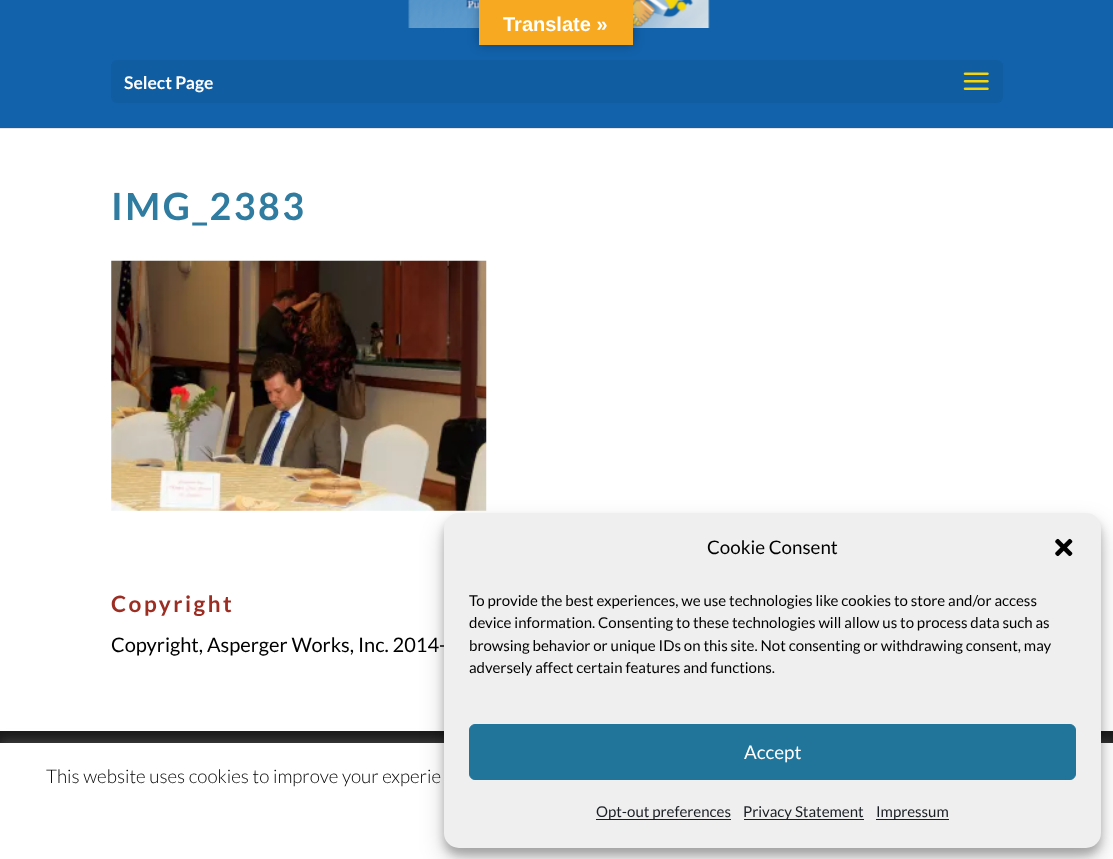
<svg xmlns="http://www.w3.org/2000/svg" width="1113" height="859">
<rect width="100%" height="100%" fill="#fff"/>
<rect width="1113" height="128" fill="#1262ab"/>
<image x="408" y="0" width="302" height="28" href="media/1.png"/>
<rect x="111" y="60" width="892" height="43" rx="6" fill="#115da2"/>
<rect x="479" width="154" height="45" fill="#0000004d" filter="blur(5.5px)"/>
<rect x="479" width="154" height="45" fill="#f7a922"/>
<text x="503" y="31" style="font-family:Liberation Sans;font-size:20px;font-weight:bold;fill:#fff">Translate »</text>
<path d="M0 128v1h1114v-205v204z" fill="#e6e6e6"/>
<text x="124" y="89" style="font-family:Lato;font-size:17.5px;font-weight:bold;fill:#fff">Select Page</text>
<image x="963" y="72" width="26" height="18" href="media/2.png"/>
<text x="111" y="220" style="font-family:Lato;font-size:37.5px;font-weight:bold;letter-spacing:2.5px;fill:#2f7ca0">IMG_2383</text>
<image x="111" y="260" width="376" height="251" href="media/3.png"/>
<text x="111" y="612" style="font-family:Lato;font-size:22.5px;font-weight:bold;letter-spacing:2.5px;fill:#9c2d23">Copyright</text>
<text x="111" y="652" style="font-family:Lato;font-size:20px;fill:#000">Copyright, Asperger Works, Inc. 2014-</text>
<rect y="731" width="1113" height="12" fill="#1a1a1a"/>
<rect y="741" width="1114" height="118" fill="#acabab4d" filter="blur(6px)"/>
<rect y="743" width="1113" height="116" fill="#fff"/>
<rect x="444" y="520" width="657" height="335" rx="15" fill="#0000003b" filter="blur(4px)"/>
<rect x="444" y="525" width="657" height="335" rx="15" fill="#00000030" filter="blur(12.5px)"/>
<rect x="444" y="513" width="657" height="335" rx="15" fill="#efefef"/>
<text x="707" y="554" style="font-family:Lato;font-size:18.75px;fill:#000">Cookie Consent</text>
<image x="1055" y="538" width="18" height="19" href="media/4.png"/>
<text x="469" y="606" style="font-family:Lato;font-size:15px;fill:#000">To provide the best experiences, we use technologies like cookies to store and/or access</text>
<text x="469" y="628" style="font-family:Lato;font-size:15px;fill:#000">device information. Consenting to these technologies will allow us to process data such as</text>
<text x="469" y="651" style="font-family:Lato;font-size:15px;fill:#000">browsing behavior or unique IDs on this site. Not consenting or withdrawing consent, may</text>
<text x="469" y="673" style="font-family:Lato;font-size:15px;fill:#000">adversely affect certain features and functions.</text>
<rect x="469.5" y="724.5" width="606" height="55" rx="5.5" fill="#21759b" stroke="#21759b"/>
<text x="744" y="759" style="font-family:Lato;font-size:18.75px;fill:#fff">Accept</text>
<rect x="596" y="819" width="135" height="1" fill="#191e23"/>
<text x="596" y="817" style="font-family:Lato;font-size:15px;fill:#191e23">Opt-out preferences</text>
<rect x="744" y="819" width="120" height="1" fill="#191e23"/>
<text x="743" y="817" style="font-family:Lato;font-size:15px;fill:#191e23">Privacy Statement</text>
<rect x="876" y="819" width="73" height="1" fill="#191e23"/>
<text x="876" y="817" style="font-family:Lato;font-size:15px;fill:#191e23">Impressum</text>
<text x="46" y="783" style="font-family:Lato;font-size:18.75px;font-weight:300;fill:#000">This website uses cookies to improve your experie</text>
</svg>
